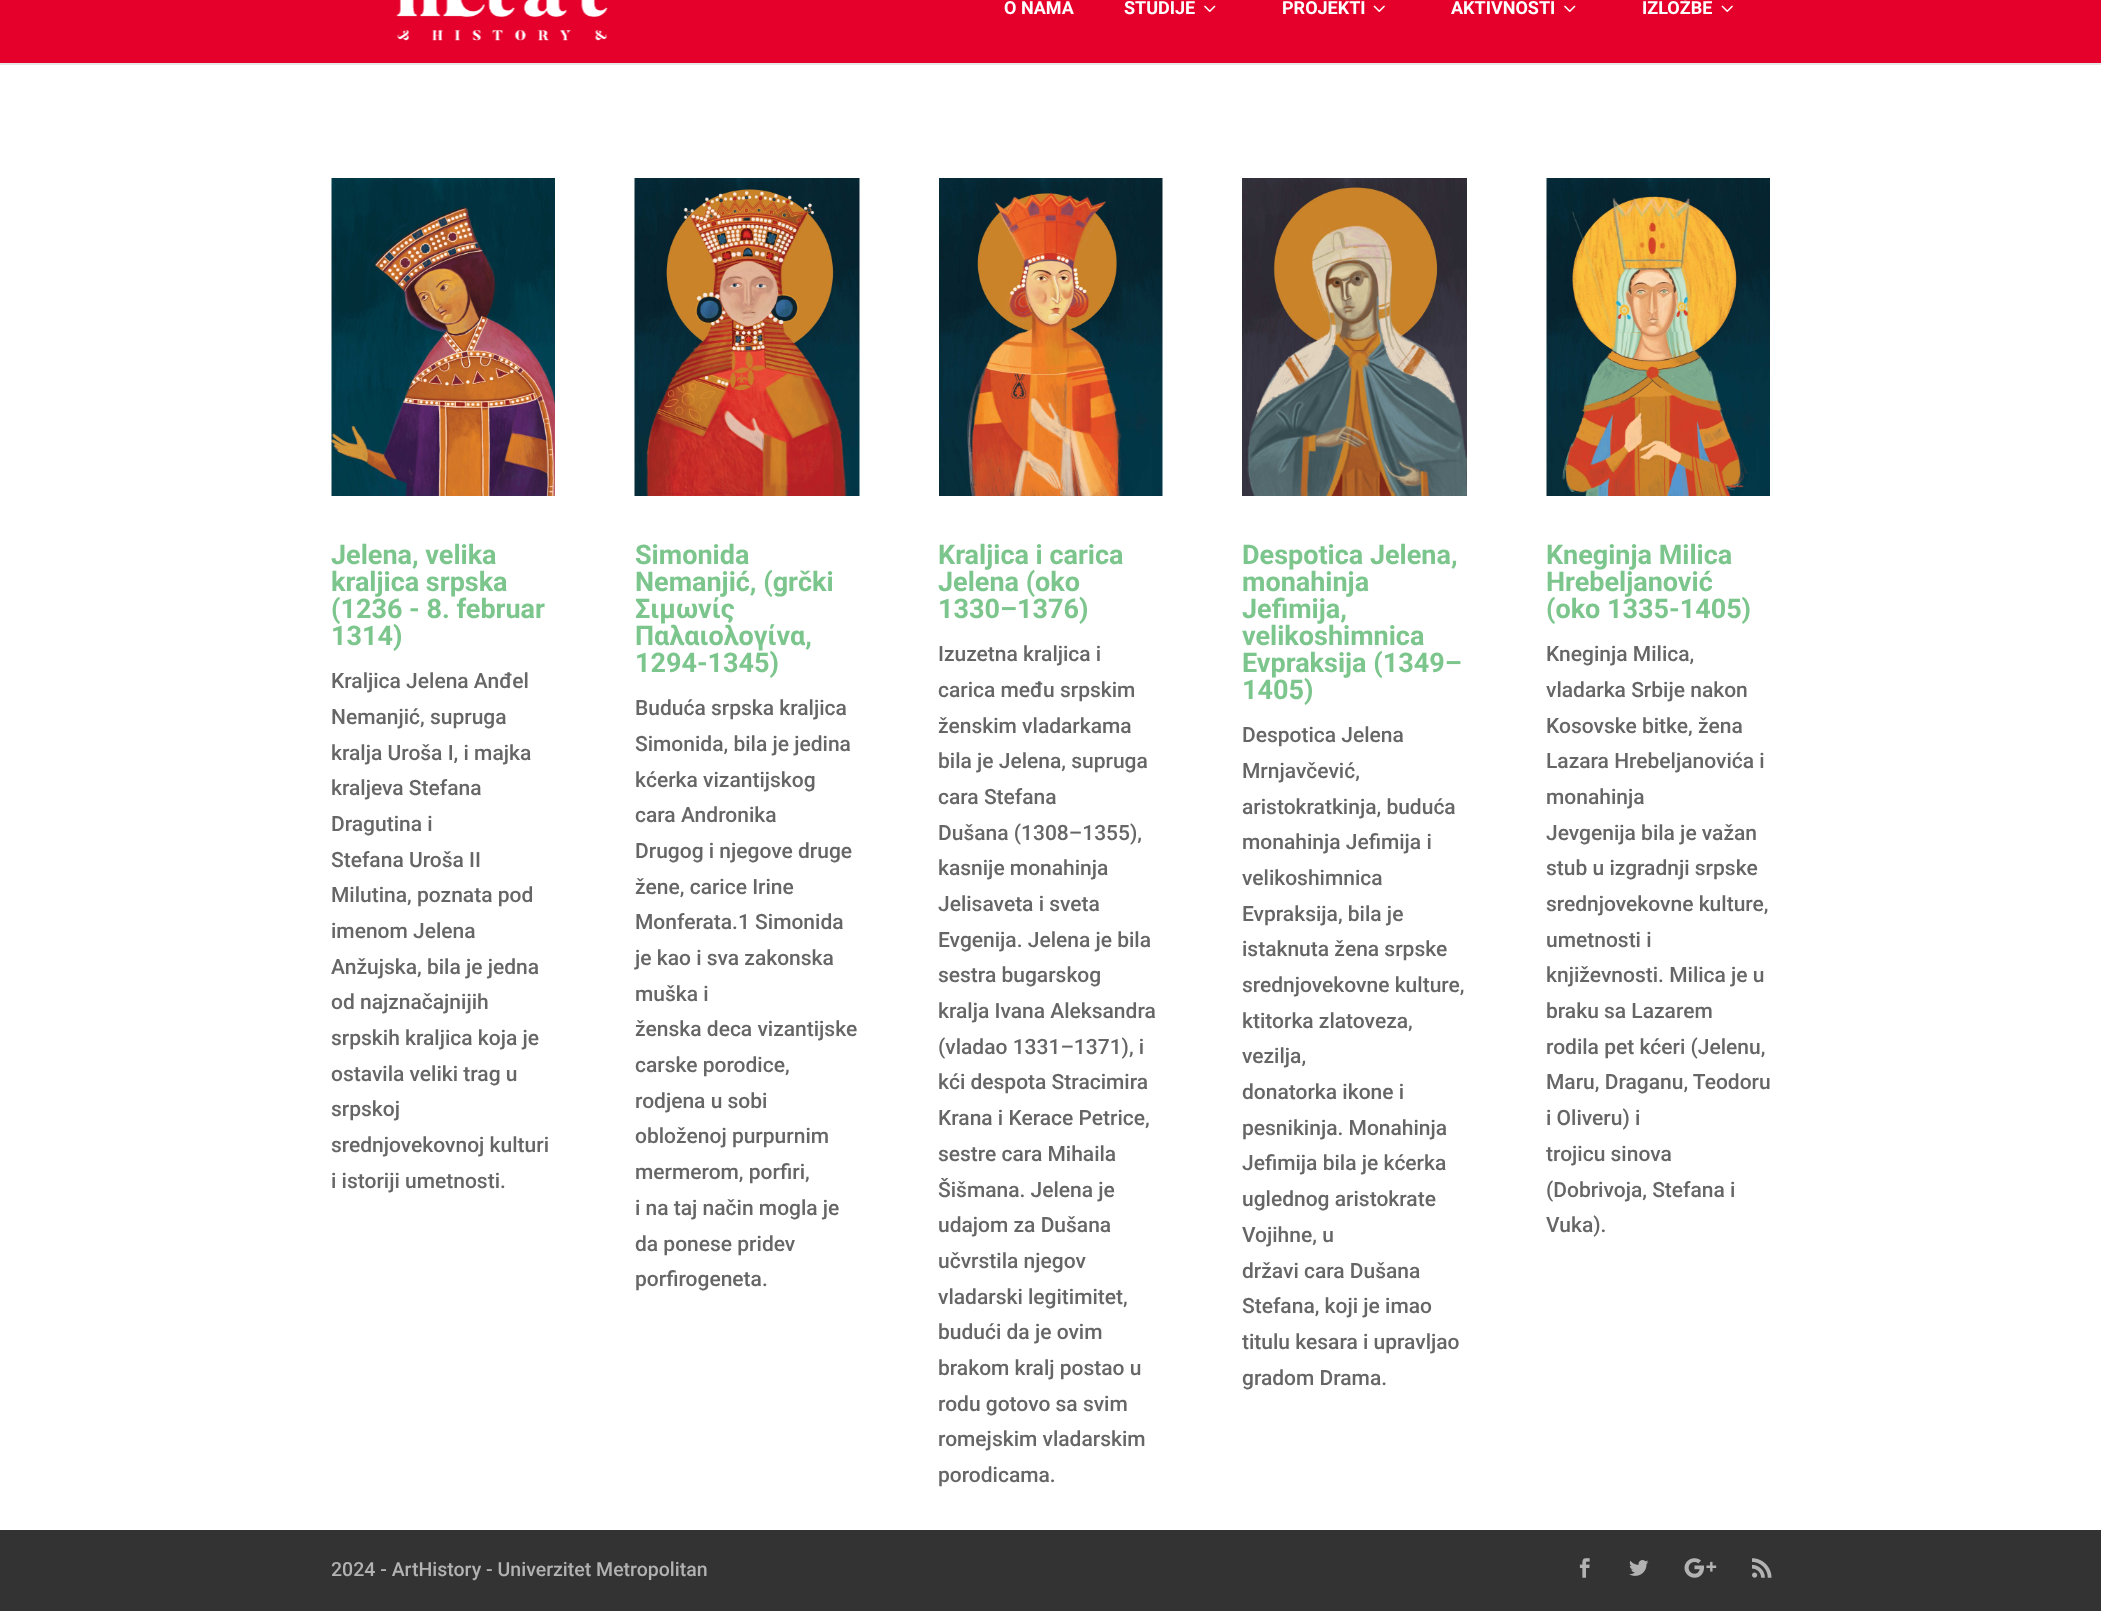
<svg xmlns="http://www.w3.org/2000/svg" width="2101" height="1611">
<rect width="100%" height="100%" fill="#fff"/>
<path d="M0 63v2h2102v-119v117z" fill="#e6e6e6"/>
<rect width="2101" height="63" fill="#e5002b"/>
<image x="396" y="0" width="212" height="41" href="media/1.png"/>
<text x="1004" y="14" style="font-family:Roboto;font-size:18px;font-weight:bold;fill:#fff">O NAMA</text>
<text x="1124" y="14" style="font-family:Roboto;font-size:18px;font-weight:bold;fill:#fff">STUDIJE</text>
<image x="1204" y="5" width="12" height="7" href="media/2.png"/>
<text x="1282" y="14" style="font-family:Roboto;font-size:18px;font-weight:bold;fill:#fff">PROJEKTI</text>
<image x="1373" y="5" width="12" height="7" href="media/3.png"/>
<text x="1451" y="14" style="font-family:Roboto;font-size:18px;font-weight:bold;fill:#fff">AKTIVNOSTI</text>
<image x="1564" y="5" width="12" height="7" href="media/2.png"/>
<text x="1642" y="14" style="font-family:Roboto;font-size:18px;font-weight:bold;fill:#fff">IZLOŽBE</text>
<image x="1721" y="5" width="12" height="7" href="media/3.png"/>
<image x="331" y="178" width="224" height="318" href="media/4.png"/>
<text x="331" y="564" style="font-family:Roboto;font-size:27px;font-weight:bold;fill:#7cc68d">Jelena, velika</text>
<text x="331" y="591" style="font-family:Roboto;font-size:27px;font-weight:bold;fill:#7cc68d">kraljica srpska</text>
<text x="331" y="618" style="font-family:Roboto;font-size:27px;font-weight:bold;fill:#7cc68d">(1236 - 8. februar</text>
<text x="331" y="645" style="font-family:Roboto;font-size:27px;font-weight:bold;fill:#7cc68d">1314)</text>
<text x="331" y="688" style="font-family:Roboto;font-size:21px;font-weight:500;fill:#666">Kraljica Jelena Anđel</text>
<text x="331" y="724" style="font-family:Roboto;font-size:21px;font-weight:500;fill:#666">Nemanjić, supruga</text>
<text x="331" y="760" style="font-family:Roboto;font-size:21px;font-weight:500;fill:#666">kralja Uroša I, i majka</text>
<text x="331" y="795" style="font-family:Roboto;font-size:21px;font-weight:500;fill:#666">kraljeva Stefana</text>
<text x="331" y="831" style="font-family:Roboto;font-size:21px;font-weight:500;fill:#666">Dragutina i</text>
<text x="331" y="867" style="font-family:Roboto;font-size:21px;font-weight:500;fill:#666">Stefana Uroša II</text>
<text x="331" y="902" style="font-family:Roboto;font-size:21px;font-weight:500;fill:#666">Milutina, poznata pod</text>
<text x="331" y="938" style="font-family:Roboto;font-size:21px;font-weight:500;fill:#666">imenom Jelena</text>
<text x="331" y="974" style="font-family:Roboto;font-size:21px;font-weight:500;fill:#666">Anžujska, bila je jedna</text>
<text x="331" y="1009" style="font-family:Roboto;font-size:21px;font-weight:500;fill:#666">od najznačajnijih</text>
<text x="331" y="1045" style="font-family:Roboto;font-size:21px;font-weight:500;fill:#666">srpskih kraljica koja je</text>
<text x="331" y="1081" style="font-family:Roboto;font-size:21px;font-weight:500;fill:#666">ostavila veliki trag u</text>
<text x="331" y="1116" style="font-family:Roboto;font-size:21px;font-weight:500;fill:#666">srpskoj</text>
<text x="331" y="1152" style="font-family:Roboto;font-size:21px;font-weight:500;fill:#666">srednjovekovnoj kulturi</text>
<text x="331" y="1188" style="font-family:Roboto;font-size:21px;font-weight:500;fill:#666">i istoriji umetnosti.</text>
<image x="634" y="178" width="226" height="318" href="media/5.png"/>
<text x="635" y="564" style="font-family:Roboto;font-size:27px;font-weight:bold;fill:#7cc68d">Simonida</text>
<text x="635" y="591" style="font-family:Roboto;font-size:27px;font-weight:bold;fill:#7cc68d">Nemanjić, (grčki</text>
<text x="635" y="618" style="font-family:Roboto;font-size:27px;font-weight:bold;fill:#7cc68d">Σιμωνίς</text>
<text x="635" y="645" style="font-family:Roboto;font-size:27px;font-weight:bold;fill:#7cc68d">Παλαιολογίνα,</text>
<text x="635" y="672" style="font-family:Roboto;font-size:27px;font-weight:bold;fill:#7cc68d">1294-1345)</text>
<text x="635" y="715" style="font-family:Roboto;font-size:21px;font-weight:500;fill:#666">Buduća srpska kraljica</text>
<text x="635" y="751" style="font-family:Roboto;font-size:21px;font-weight:500;fill:#666">Simonida, bila je jedina</text>
<text x="635" y="787" style="font-family:Roboto;font-size:21px;font-weight:500;fill:#666">kćerka vizantijskog</text>
<text x="635" y="822" style="font-family:Roboto;font-size:21px;font-weight:500;fill:#666">cara Andronika</text>
<text x="635" y="858" style="font-family:Roboto;font-size:21px;font-weight:500;fill:#666">Drugog i njegove druge</text>
<text x="635" y="894" style="font-family:Roboto;font-size:21px;font-weight:500;fill:#666">žene, carice Irine</text>
<text x="635" y="929" style="font-family:Roboto;font-size:21px;font-weight:500;fill:#666">Monferata.1 Simonida</text>
<text x="635" y="965" style="font-family:Roboto;font-size:21px;font-weight:500;fill:#666">je kao i sva zakonska</text>
<text x="635" y="1001" style="font-family:Roboto;font-size:21px;font-weight:500;fill:#666">muška i</text>
<text x="635" y="1036" style="font-family:Roboto;font-size:21px;font-weight:500;fill:#666">ženska deca vizantijske</text>
<text x="635" y="1072" style="font-family:Roboto;font-size:21px;font-weight:500;fill:#666">carske porodice,</text>
<text x="635" y="1108" style="font-family:Roboto;font-size:21px;font-weight:500;fill:#666">rodjena u sobi</text>
<text x="635" y="1143" style="font-family:Roboto;font-size:21px;font-weight:500;fill:#666">obloženoj purpurnim</text>
<text x="635" y="1179" style="font-family:Roboto;font-size:21px;font-weight:500;fill:#666">mermerom, porfiri,</text>
<text x="635" y="1215" style="font-family:Roboto;font-size:21px;font-weight:500;fill:#666">i na taj način mogla je</text>
<text x="635" y="1251" style="font-family:Roboto;font-size:21px;font-weight:500;fill:#666">da ponese pridev</text>
<text x="635" y="1286" style="font-family:Roboto;font-size:21px;font-weight:500;fill:#666">porfirogeneta.</text>
<image x="939" y="178" width="224" height="318" href="media/6.png"/>
<text x="938" y="564" style="font-family:Roboto;font-size:27px;font-weight:bold;fill:#7cc68d">Kraljica i carica</text>
<text x="938" y="591" style="font-family:Roboto;font-size:27px;font-weight:bold;fill:#7cc68d">Jelena (oko</text>
<text x="938" y="618" style="font-family:Roboto;font-size:27px;font-weight:bold;fill:#7cc68d">1330–1376)</text>
<text x="938" y="661" style="font-family:Roboto;font-size:21px;font-weight:500;fill:#666">Izuzetna kraljica i</text>
<text x="938" y="697" style="font-family:Roboto;font-size:21px;font-weight:500;fill:#666">carica među srpskim</text>
<text x="938" y="733" style="font-family:Roboto;font-size:21px;font-weight:500;fill:#666">ženskim vladarkama</text>
<text x="938" y="768" style="font-family:Roboto;font-size:21px;font-weight:500;fill:#666">bila je Jelena, supruga</text>
<text x="938" y="804" style="font-family:Roboto;font-size:21px;font-weight:500;fill:#666">cara Stefana</text>
<text x="938" y="840" style="font-family:Roboto;font-size:21px;font-weight:500;fill:#666">Dušana (1308–1355),</text>
<text x="938" y="875" style="font-family:Roboto;font-size:21px;font-weight:500;fill:#666">kasnije monahinja</text>
<text x="938" y="911" style="font-family:Roboto;font-size:21px;font-weight:500;fill:#666">Jelisaveta i sveta</text>
<text x="938" y="947" style="font-family:Roboto;font-size:21px;font-weight:500;fill:#666">Evgenija. Jelena je bila</text>
<text x="938" y="982" style="font-family:Roboto;font-size:21px;font-weight:500;fill:#666">sestra bugarskog</text>
<text x="938" y="1018" style="font-family:Roboto;font-size:21px;font-weight:500;fill:#666">kralja Ivana Aleksandra</text>
<text x="938" y="1054" style="font-family:Roboto;font-size:21px;font-weight:500;fill:#666">(vladao 1331–1371), i</text>
<text x="938" y="1089" style="font-family:Roboto;font-size:21px;font-weight:500;fill:#666">kći despota Stracimira</text>
<text x="938" y="1125" style="font-family:Roboto;font-size:21px;font-weight:500;fill:#666">Krana i Kerace Petrice,</text>
<text x="938" y="1161" style="font-family:Roboto;font-size:21px;font-weight:500;fill:#666">sestre cara Mihaila</text>
<text x="938" y="1197" style="font-family:Roboto;font-size:21px;font-weight:500;fill:#666">Šišmana. Jelena je</text>
<text x="938" y="1232" style="font-family:Roboto;font-size:21px;font-weight:500;fill:#666">udajom za Dušana</text>
<text x="938" y="1268" style="font-family:Roboto;font-size:21px;font-weight:500;fill:#666">učvrstila njegov</text>
<text x="938" y="1304" style="font-family:Roboto;font-size:21px;font-weight:500;fill:#666">vladarski legitimitet,</text>
<text x="938" y="1339" style="font-family:Roboto;font-size:21px;font-weight:500;fill:#666">budući da je ovim</text>
<text x="938" y="1375" style="font-family:Roboto;font-size:21px;font-weight:500;fill:#666">brakom kralj postao u</text>
<text x="938" y="1411" style="font-family:Roboto;font-size:21px;font-weight:500;fill:#666">rodu gotovo sa svim</text>
<text x="938" y="1446" style="font-family:Roboto;font-size:21px;font-weight:500;fill:#666">romejskim vladarskim</text>
<text x="938" y="1482" style="font-family:Roboto;font-size:21px;font-weight:500;fill:#666">porodicama.</text>
<image x="1242" y="178" width="225" height="318" href="media/7.png"/>
<text x="1242" y="564" style="font-family:Roboto;font-size:27px;font-weight:bold;fill:#7cc68d">Despotica Jelena,</text>
<text x="1242" y="591" style="font-family:Roboto;font-size:27px;font-weight:bold;fill:#7cc68d">monahinja</text>
<text x="1242" y="618" style="font-family:Roboto;font-size:27px;font-weight:bold;fill:#7cc68d">Jefimija,</text>
<text x="1242" y="645" style="font-family:Roboto;font-size:27px;font-weight:bold;fill:#7cc68d">velikoshimnica</text>
<text x="1242" y="672" style="font-family:Roboto;font-size:27px;font-weight:bold;fill:#7cc68d">Evpraksija (1349–</text>
<text x="1242" y="699" style="font-family:Roboto;font-size:27px;font-weight:bold;fill:#7cc68d">1405)</text>
<text x="1242" y="742" style="font-family:Roboto;font-size:21px;font-weight:500;fill:#666">Despotica Jelena</text>
<text x="1242" y="778" style="font-family:Roboto;font-size:21px;font-weight:500;fill:#666">Mrnjavčević,</text>
<text x="1242" y="814" style="font-family:Roboto;font-size:21px;font-weight:500;fill:#666">aristokratkinja, buduća</text>
<text x="1242" y="849" style="font-family:Roboto;font-size:21px;font-weight:500;fill:#666">monahinja Jefimija i</text>
<text x="1242" y="885" style="font-family:Roboto;font-size:21px;font-weight:500;fill:#666">velikoshimnica</text>
<text x="1242" y="921" style="font-family:Roboto;font-size:21px;font-weight:500;fill:#666">Evpraksija, bila je</text>
<text x="1242" y="956" style="font-family:Roboto;font-size:21px;font-weight:500;fill:#666">istaknuta žena srpske</text>
<text x="1242" y="992" style="font-family:Roboto;font-size:21px;font-weight:500;fill:#666">srednjovekovne kulture,</text>
<text x="1242" y="1028" style="font-family:Roboto;font-size:21px;font-weight:500;fill:#666">ktitorka zlatoveza,</text>
<text x="1242" y="1063" style="font-family:Roboto;font-size:21px;font-weight:500;fill:#666">vezilja,</text>
<text x="1242" y="1099" style="font-family:Roboto;font-size:21px;font-weight:500;fill:#666">donatorka ikone i</text>
<text x="1242" y="1135" style="font-family:Roboto;font-size:21px;font-weight:500;fill:#666">pesnikinja. Monahinja</text>
<text x="1242" y="1170" style="font-family:Roboto;font-size:21px;font-weight:500;fill:#666">Jefimija bila je kćerka</text>
<text x="1242" y="1206" style="font-family:Roboto;font-size:21px;font-weight:500;fill:#666">uglednog aristokrate</text>
<text x="1242" y="1242" style="font-family:Roboto;font-size:21px;font-weight:500;fill:#666">Vojihne, u</text>
<text x="1242" y="1278" style="font-family:Roboto;font-size:21px;font-weight:500;fill:#666">državi cara Dušana</text>
<text x="1242" y="1313" style="font-family:Roboto;font-size:21px;font-weight:500;fill:#666">Stefana, koji je imao</text>
<text x="1242" y="1349" style="font-family:Roboto;font-size:21px;font-weight:500;fill:#666">titulu kesara i upravljao</text>
<text x="1242" y="1385" style="font-family:Roboto;font-size:21px;font-weight:500;fill:#666">gradom Drama.</text>
<image x="1546" y="178" width="224" height="318" href="media/8.png"/>
<text x="1546" y="564" style="font-family:Roboto;font-size:27px;font-weight:bold;fill:#7cc68d">Kneginja Milica</text>
<text x="1546" y="591" style="font-family:Roboto;font-size:27px;font-weight:bold;fill:#7cc68d">Hrebeljanović</text>
<text x="1546" y="618" style="font-family:Roboto;font-size:27px;font-weight:bold;fill:#7cc68d">(oko 1335-1405)</text>
<text x="1546" y="661" style="font-family:Roboto;font-size:21px;font-weight:500;fill:#666">Kneginja Milica,</text>
<text x="1546" y="697" style="font-family:Roboto;font-size:21px;font-weight:500;fill:#666">vladarka Srbije nakon</text>
<text x="1546" y="733" style="font-family:Roboto;font-size:21px;font-weight:500;fill:#666">Kosovske bitke, žena</text>
<text x="1546" y="768" style="font-family:Roboto;font-size:21px;font-weight:500;fill:#666">Lazara Hrebeljanovića i</text>
<text x="1546" y="804" style="font-family:Roboto;font-size:21px;font-weight:500;fill:#666">monahinja</text>
<text x="1546" y="840" style="font-family:Roboto;font-size:21px;font-weight:500;fill:#666">Jevgenija bila je važan</text>
<text x="1546" y="875" style="font-family:Roboto;font-size:21px;font-weight:500;fill:#666">stub u izgradnji srpske</text>
<text x="1546" y="911" style="font-family:Roboto;font-size:21px;font-weight:500;fill:#666">srednjovekovne kulture,</text>
<text x="1546" y="947" style="font-family:Roboto;font-size:21px;font-weight:500;fill:#666">umetnosti i</text>
<text x="1546" y="982" style="font-family:Roboto;font-size:21px;font-weight:500;fill:#666">književnosti. Milica je u</text>
<text x="1546" y="1018" style="font-family:Roboto;font-size:21px;font-weight:500;fill:#666">braku sa Lazarem</text>
<text x="1546" y="1054" style="font-family:Roboto;font-size:21px;font-weight:500;fill:#666">rodila pet kćeri (Jelenu,</text>
<text x="1546" y="1089" style="font-family:Roboto;font-size:21px;font-weight:500;fill:#666">Maru, Draganu, Teodoru</text>
<text x="1546" y="1125" style="font-family:Roboto;font-size:21px;font-weight:500;fill:#666">i Oliveru) i</text>
<text x="1546" y="1161" style="font-family:Roboto;font-size:21px;font-weight:500;fill:#666">trojicu sinova</text>
<text x="1546" y="1197" style="font-family:Roboto;font-size:21px;font-weight:500;fill:#666">(Dobrivoja, Stefana i</text>
<text x="1546" y="1232" style="font-family:Roboto;font-size:21px;font-weight:500;fill:#666">Vuka).</text>
<rect y="1530" width="2101" height="81" fill="#333"/>
<text x="331" y="1576" style="font-family:Roboto;font-size:19.5px;font-weight:500;fill:#b2b2b2">2024 - ArtHistory - Univerzitet Metropolitan</text>
<image x="1579" y="1558" width="11" height="20" href="media/9.png"/>
<image x="1629" y="1560" width="20" height="16" href="media/10.png"/>
<image x="1684" y="1558" width="33" height="20" href="media/11.png"/>
<image x="1752" y="1558" width="20" height="20" href="media/12.png"/>
</svg>
